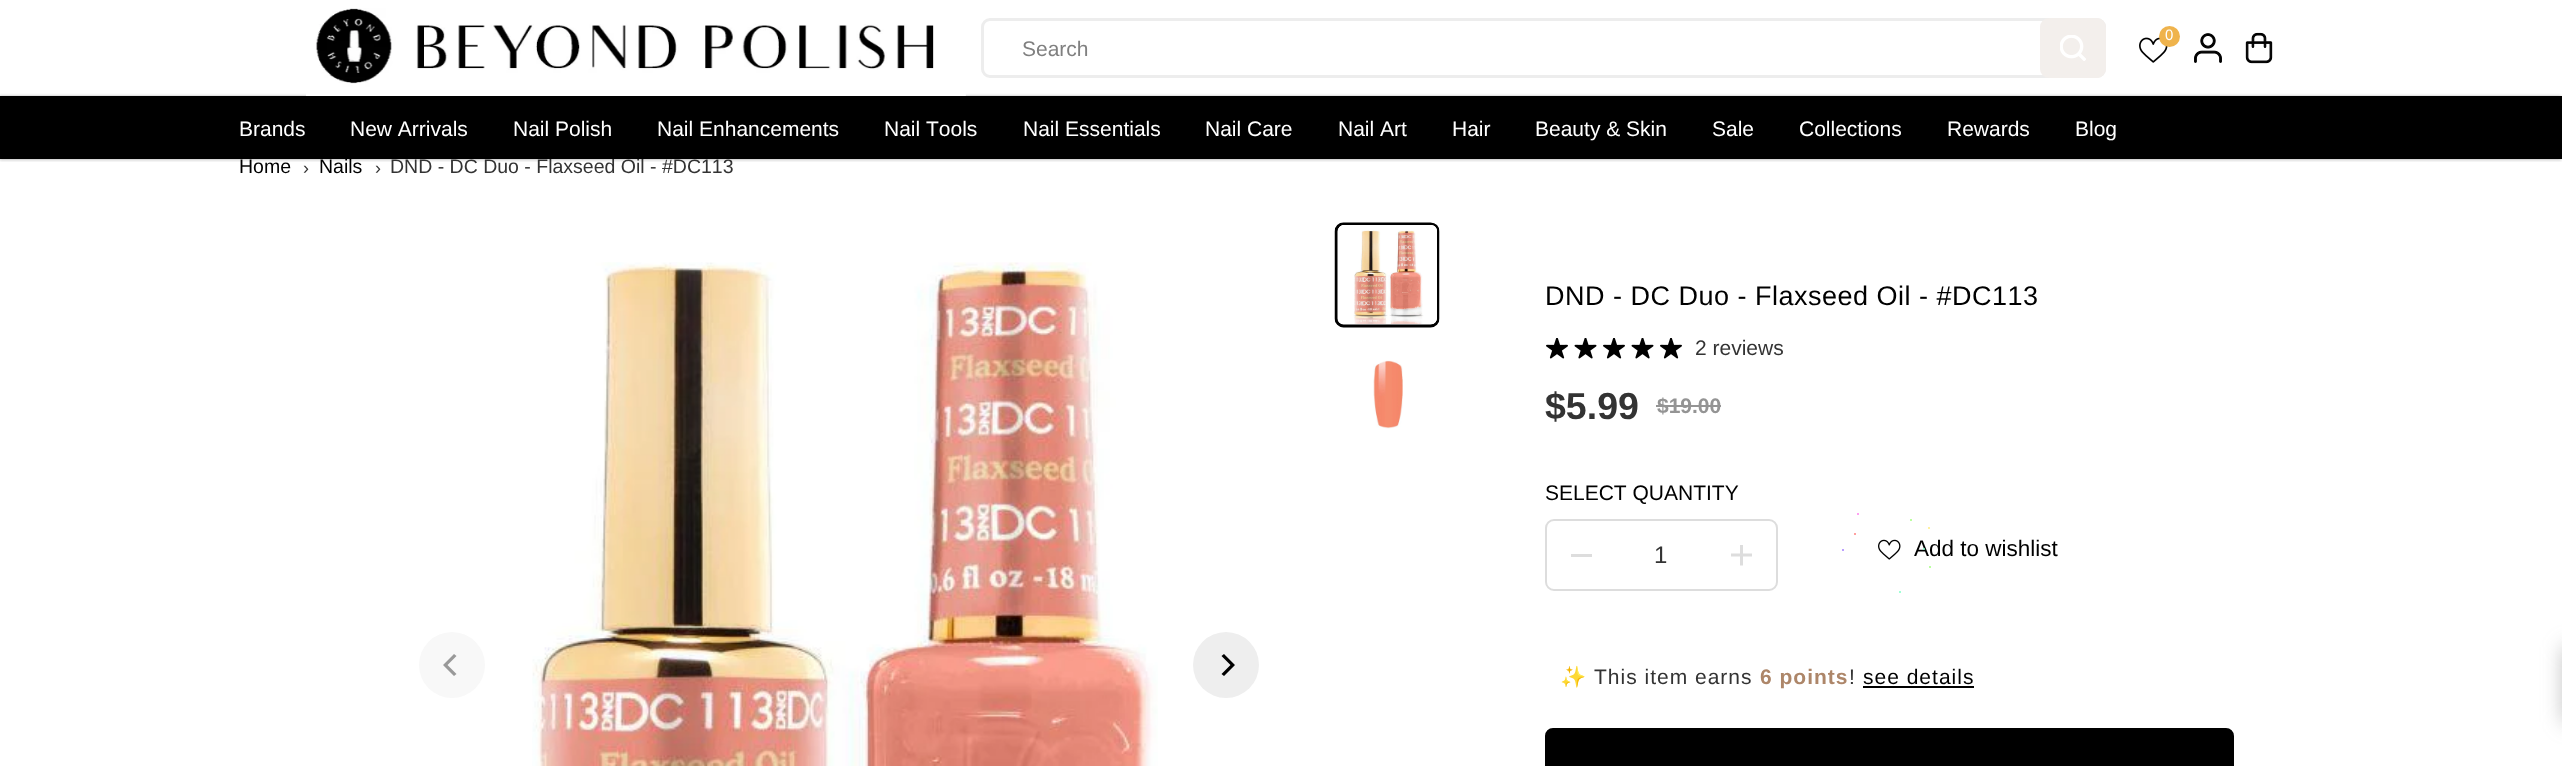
<svg xmlns="http://www.w3.org/2000/svg" width="2562" height="766">
<style>*{font-kerning:none!important;font-variant-ligatures:none!important}</style>
<defs>
<clipPath id="clip1"><rect x="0" y="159" width="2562" height="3"/></clipPath>
<clipPath id="clip2"><path d="M1439.5 215v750h-105v-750z"/></clipPath>
</defs>
<rect width="100%" height="100%" fill="#fff"/>
<g clip-path="url(#clip1)">
<rect y="3" width="2562" height="159" fill="#0000000d" filter="blur(1.5px)"/>
</g>
<rect x="-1" y="96" width="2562" height="63" fill="#0000004d" filter="blur(1.5px)"/>
<image x="306" y="8" width="660" height="88" href="media/1.png"/>
<image x="2139" y="37" width="29" height="26" href="media/2.png"/>
<circle cx="2169.5" cy="36.5" r="10.5" fill="#efb34c"/>
<text x="2165" y="40" style="font-family:Liberation Sans;font-size:15px;fill:#fff">0</text>
<image x="2194" y="33" width="28" height="30" href="media/3.png"/>
<image x="2245" y="32" width="28" height="32" href="media/4.png"/>
<rect x="982.5" y="19.5" width="1122" height="57" rx="7.5" fill="none" stroke="#ededed" stroke-width="3"/>
<text x="1022" y="56" style="font-family:Liberation Sans;font-size:21px;fill:#808080">Search</text>
<rect x="2040" y="18" width="66" height="60" rx="9" fill="#f3efec"/>
<image x="2060" y="35" width="26" height="26" href="media/5.png"/>
<text x="390" y="173" style="font-family:Liberation Sans;font-size:19.5px;fill:#333">DND - DC Duo - Flaxseed Oil - #DC113</text>
<rect y="96" width="2562" height="63" fill="#000"/>
<text x="239" y="136" style="font-family:Liberation Sans;font-size:21px;fill:#fff">Brands</text>
<text x="350" y="136" style="font-family:Liberation Sans;font-size:21px;fill:#fff">New Arrivals</text>
<text x="513" y="136" style="font-family:Liberation Sans;font-size:21px;fill:#fff">Nail Polish</text>
<text x="657" y="136" style="font-family:Liberation Sans;font-size:21px;fill:#fff">Nail Enhancements</text>
<text x="884" y="136" style="font-family:Liberation Sans;font-size:21px;fill:#fff">Nail Tools</text>
<text x="1023" y="136" style="font-family:Liberation Sans;font-size:21px;fill:#fff">Nail Essentials</text>
<text x="1205" y="136" style="font-family:Liberation Sans;font-size:21px;fill:#fff">Nail Care</text>
<text x="1338" y="136" style="font-family:Liberation Sans;font-size:21px;fill:#fff">Nail Art</text>
<text x="1452" y="136" style="font-family:Liberation Sans;font-size:21px;fill:#fff">Hair</text>
<text x="1535" y="136" style="font-family:Liberation Sans;font-size:21px;fill:#fff">Beauty &amp; Skin</text>
<text x="1712" y="136" style="font-family:Liberation Sans;font-size:21px;fill:#fff">Sale</text>
<text x="1799" y="136" style="font-family:Liberation Sans;font-size:21px;fill:#fff">Collections</text>
<text x="1947" y="136" style="font-family:Liberation Sans;font-size:21px;fill:#fff">Rewards</text>
<text x="2075" y="136" style="font-family:Liberation Sans;font-size:21px;fill:#fff">Blog</text>
<text x="239" y="173" style="font-family:Liberation Sans;font-size:19.5px;fill:#000">Home</text>
<text x="303" y="174" style="font-family:Liberation Sans;font-size:18px;fill:#333">›</text>
<text x="319" y="173" style="font-family:Liberation Sans;font-size:19.5px;fill:#000">Nails</text>
<text x="375" y="174" style="font-family:Liberation Sans;font-size:18px;fill:#333">›</text>
<circle cx="452" cy="665" r="33" fill="#f8f8f8"/>
<path d="M443 665l11 11l2.5-2l-9-9l9-9l-2.5-2z" fill="#999"/>
<image x="532" y="262" width="626" height="504" href="media/6.png"/>
<circle cx="1226" cy="665" r="33" fill="#eee"/>
<path d="M1235 665l-11-11l-2.5 2l9 9l-9 9l2.5 2z" fill="#000"/>
<g clip-path="url(#clip2)">
<path d="M1438 231.5v87c0 4-3 7.5-7.5 7.5h-87c-4 0-7.5-3.5-7.5-7.5v-87c0-4.5 3.5-7.5 7.5-7.5h87c4.5 0 7.5 3 7.5 7.5z" fill="none" stroke="#000" stroke-width="3"/>
</g>
<path d="M1437 231v87c0 3-2 5-4 6h-91c-2-1-3-2-4-4v-90c1-3 3-5 6-5h87c3 0 6 3 6 6z" fill="#fff"/>
<image x="1338" y="225" width="99" height="99" href="media/7.png"/>
<image x="1373" y="360" width="30" height="69" href="media/8.png"/>
<text x="1545" y="305" style="font-family:Liberation Sans;font-size:27px;letter-spacing:0.5px;fill:#000">DND - DC Duo - Flaxseed Oil - #DC113</text>
<image x="1546" y="338" width="22" height="21" href="media/9.png"/>
<image x="1574" y="338" width="23" height="21" href="media/10.png"/>
<image x="1603" y="338" width="22" height="21" href="media/9.png"/>
<image x="1631" y="338" width="23" height="21" href="media/10.png"/>
<image x="1660" y="338" width="22" height="21" href="media/9.png"/>
<text x="1695" y="355" style="font-family:Liberation Sans;font-size:21px;fill:#333">2 reviews</text>
<text x="1545" y="419" style="font-family:Liberation Sans;font-size:37.5px;font-weight:bold;fill:#333">$5.99</text>
<text x="1657" y="413" style="font-family:Liberation Sans;font-size:21px;font-weight:bold;fill:#949494">$19.00</text>
<rect x="1656" y="405" width="65" height="2" fill="#949494"/>
<text x="1545" y="500" style="font-family:Liberation Sans;font-size:21px;fill:#000">SELECT QUANTITY</text>
<rect x="1546" y="520" width="231" height="70" rx="8" fill="none" stroke="#ddd" stroke-width="2"/>
<rect x="1571" y="554" width="21" height="3" fill="#ddd"/>
<text x="1654" y="563" style="font-family:Liberation Sans;font-size:24px;fill:#333">1</text>
<image x="1731" y="545" width="21" height="21" href="media/11.png"/>
<circle cx="1855" cy="534" r="1" fill="#ff8080"/>
<circle cx="1858" cy="514" r="1" fill="#ff80ed"/>
<circle cx="1843" cy="550" r="1" fill="#a480ff"/>
<circle cx="1900" cy="592" r="1" fill="#80ffc8"/>
<text x="1914" y="556" style="font-family:Liberation Sans;font-size:22.5px;fill:#000">Add to wishlist</text>
<circle cx="1924" cy="549" r="1" fill="#80ffc8"/>
<circle cx="1930" cy="567" r="1" fill="#a4ff80"/>
<circle cx="1911" cy="520" r="1" fill="#a4ff80"/>
<circle cx="1929" cy="528" r="1" fill="#ffed80"/>
<image x="1878" y="539" width="23" height="21" href="media/12.png"/>
<text x="1560" y="684" style="font-family:Noto Color Emoji;font-size:21px;letter-spacing:1px;fill:#333">✨</text>
<text x="1594" y="684" style="font-family:Liberation Sans;font-size:21px;letter-spacing:1px;fill:#333">This item earns</text>
<text x="1760" y="684" style="font-family:Liberation Sans;font-size:21px;font-weight:bold;letter-spacing:1px;fill:#ad8669">6 points</text>
<text x="1849" y="684" style="font-family:Liberation Sans;font-size:21px;letter-spacing:1px;fill:#333">!</text>
<text x="1863" y="684" style="font-family:Liberation Sans;font-size:21px;letter-spacing:1px;fill:#000">see details</text>
<rect x="1863" y="686" width="111" height="2" fill="#000"/>
<rect x="1546" y="729" width="687" height="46" rx="7" fill="#000" stroke="#000" stroke-width="2"/>
<rect x="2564" y="647" width="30" height="75" fill="#75757580" filter="blur(10.5px)"/>
</svg>
